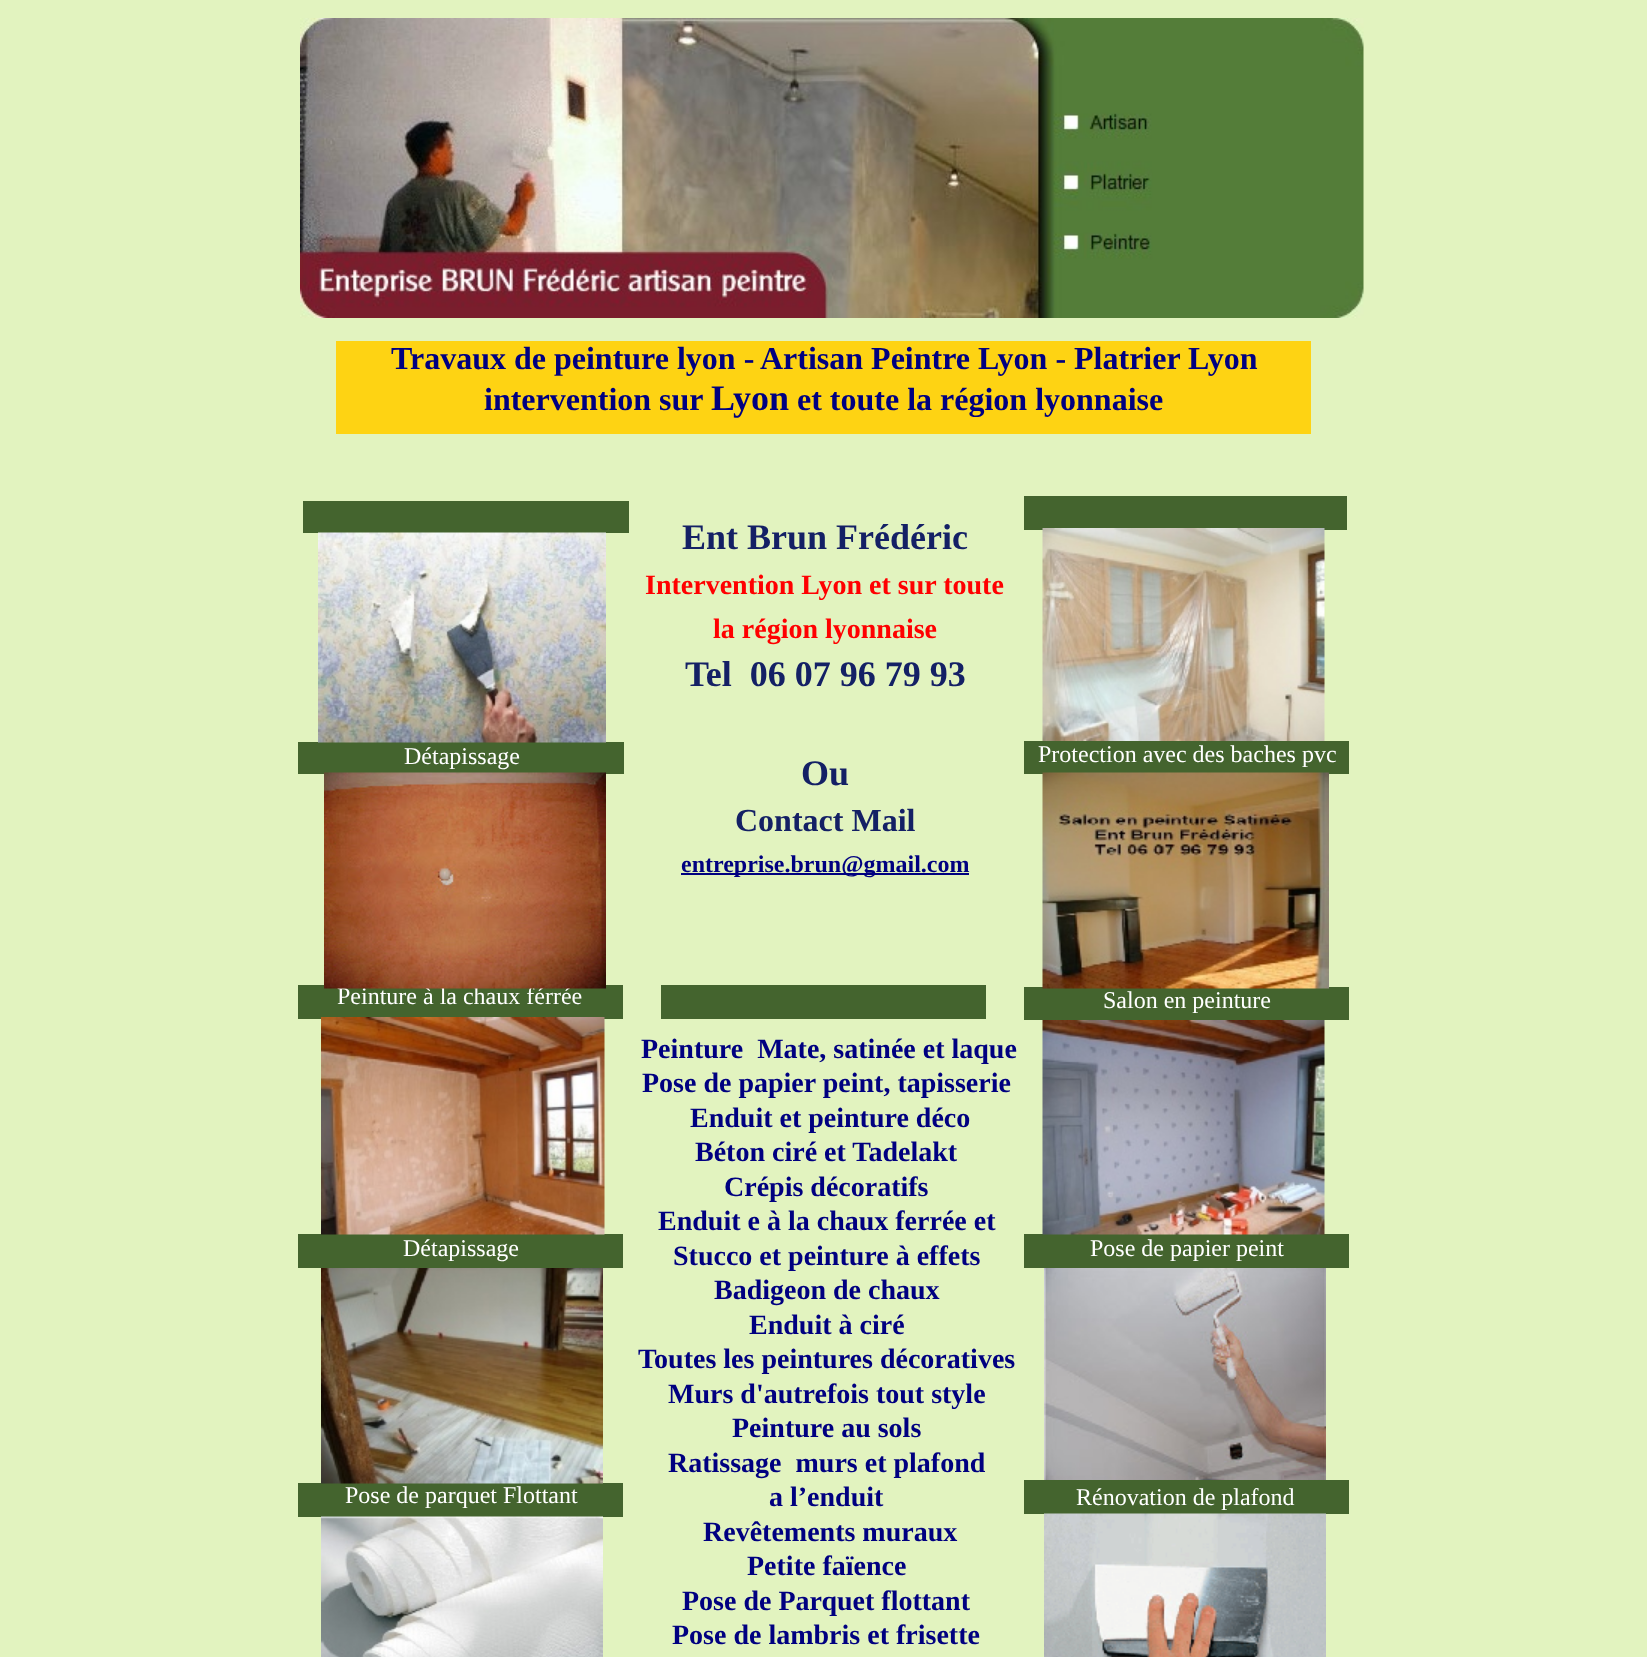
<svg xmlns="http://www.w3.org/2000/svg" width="1647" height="1657">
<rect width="100%" height="100%" fill="#e2f3bf"/>
<image x="300" y="18" width="1064" height="300" href="media/1.png"/>
<rect x="336" y="341" width="975" height="93" fill="#fed313"/>
<text x="391" y="369" style="font-family:Liberation Serif;font-size:32px;font-weight:bold;fill:#000080">Travaux de peinture lyon -</text>
<text x="760" y="369" style="font-family:Liberation Serif;font-size:32px;font-weight:bold;fill:#000080">Artisan Peintre Lyon - Platrier Lyon</text>
<text x="484" y="410" style="font-family:Liberation Serif;font-size:32px;font-weight:bold;fill:#000080">intervention sur</text>
<text x="711" y="410" style="font-family:Liberation Serif;font-size:36px;font-weight:bold;fill:#000080">Lyon</text>
<text x="797" y="410" style="font-family:Liberation Serif;font-size:32px;font-weight:bold;fill:#000080">et toute la région lyonnaise</text>
<rect x="303" y="501" width="326" height="32" fill="#44642e"/>
<rect x="1024" y="496" width="323" height="34" fill="#44642e"/>
<rect x="298" y="742" width="326" height="32" fill="#44642e"/>
<image x="318" y="532" width="288" height="211" href="media/2.png"/>
<text x="682" y="549" style="font-family:Liberation Serif;font-size:36px;font-weight:bold;fill:#142065">Ent Brun Frédéric</text>
<text x="645" y="594" style="font-family:Liberation Serif;font-size:28px;font-weight:bold;fill:#f00">Intervention Lyon et sur toute</text>
<text x="713" y="638" style="font-family:Liberation Serif;font-size:28px;font-weight:bold;fill:#f00">la région lyonnaise</text>
<text x="685" y="686" style="font-family:Liberation Serif;font-size:36px;font-weight:bold;fill:#142065" xml:space="preserve">Tel  06 07 96 79 93</text>
<text x="801" y="785" style="font-family:Liberation Serif;font-size:36px;font-weight:bold;fill:#142065">Ou</text>
<text x="735" y="831" style="font-family:Liberation Serif;font-size:32px;font-weight:bold;fill:#142065">Contact Mail</text>
<rect x="681" y="873" width="288" height="2" fill="#000080"/>
<text x="681" y="872" style="font-family:Liberation Serif;font-size:24px;font-weight:bold;fill:#000080">entreprise.brun@gmail.com</text>
<image x="1042" y="528" width="283" height="213" href="media/3.png"/>
<rect x="1024" y="741" width="325" height="33" fill="#44642e"/>
<text x="404" y="764" style="font-family:Liberation Serif;font-size:24px;fill:#fff">Détapissage</text>
<text x="1038" y="762" style="font-family:Liberation Serif;font-size:24px;fill:#fff">Protection avec des baches pvc</text>
<rect x="298" y="985" width="325" height="34" fill="#44642e"/>
<text x="337" y="1004" style="font-family:Liberation Serif;font-size:24px;fill:#fff">Peinture à la chaux férrée</text>
<image x="324" y="772" width="282" height="217" href="media/4.png"/>
<rect x="1024" y="987" width="325" height="33" fill="#44642e"/>
<image x="1042" y="772" width="287" height="217" href="media/5.png"/>
<rect x="661" y="985" width="325" height="34" fill="#44642e"/>
<text x="1103" y="1008" style="font-family:Liberation Serif;font-size:24px;fill:#fff">Salon en peinture</text>
<rect x="298" y="1234" width="325" height="34" fill="#44642e"/>
<image x="321" y="1017" width="284" height="218" href="media/6.png"/>
<text x="641" y="1058" style="font-family:Liberation Serif;font-size:28px;font-weight:bold;fill:#000080" xml:space="preserve">Peinture  Mate, satinée et laque</text>
<text x="642" y="1092" style="font-family:Liberation Serif;font-size:28px;font-weight:bold;fill:#000080">Pose de papier peint, tapisserie</text>
<text x="690" y="1127" style="font-family:Liberation Serif;font-size:28px;font-weight:bold;fill:#000080">Enduit et peinture déco</text>
<text x="695" y="1161" style="font-family:Liberation Serif;font-size:28px;font-weight:bold;fill:#000080">Béton ciré et Tadelakt</text>
<text x="724" y="1196" style="font-family:Liberation Serif;font-size:28px;font-weight:bold;fill:#000080">Crépis décoratifs</text>
<text x="658" y="1230" style="font-family:Liberation Serif;font-size:28px;font-weight:bold;fill:#000080">Enduit e à la chaux ferrée et</text>
<text x="673" y="1265" style="font-family:Liberation Serif;font-size:28px;font-weight:bold;fill:#000080">Stucco et peinture à effets</text>
<text x="714" y="1299" style="font-family:Liberation Serif;font-size:28px;font-weight:bold;fill:#000080">Badigeon de chaux</text>
<text x="749" y="1334" style="font-family:Liberation Serif;font-size:28px;font-weight:bold;fill:#000080">Enduit à ciré</text>
<text x="638" y="1368" style="font-family:Liberation Serif;font-size:28px;font-weight:bold;fill:#000080">Toutes les peintures décoratives</text>
<text x="668" y="1403" style="font-family:Liberation Serif;font-size:28px;font-weight:bold;fill:#000080">Murs d'autrefois tout style</text>
<text x="732" y="1437" style="font-family:Liberation Serif;font-size:28px;font-weight:bold;fill:#000080">Peinture au sols</text>
<text x="668" y="1472" style="font-family:Liberation Serif;font-size:28px;font-weight:bold;fill:#000080" xml:space="preserve">Ratissage  murs et plafond</text>
<text x="769" y="1506" style="font-family:Liberation Serif;font-size:28px;font-weight:bold;fill:#000080">a l’enduit</text>
<text x="703" y="1541" style="font-family:Liberation Serif;font-size:28px;font-weight:bold;fill:#000080">Revêtements muraux</text>
<text x="747" y="1575" style="font-family:Liberation Serif;font-size:28px;font-weight:bold;fill:#000080">Petite faïence</text>
<text x="682" y="1610" style="font-family:Liberation Serif;font-size:28px;font-weight:bold;fill:#000080">Pose de Parquet flottant</text>
<text x="672" y="1644" style="font-family:Liberation Serif;font-size:28px;font-weight:bold;fill:#000080">Pose de lambris et frisette</text>
<rect x="1024" y="1234" width="325" height="34" fill="#44642e"/>
<image x="1042" y="1020" width="283" height="215" href="media/7.png"/>
<text x="403" y="1256" style="font-family:Liberation Serif;font-size:24px;fill:#fff">Détapissage</text>
<text x="1090" y="1256" style="font-family:Liberation Serif;font-size:24px;fill:#fff">Pose de papier peint</text>
<rect x="298" y="1483" width="325" height="34" fill="#44642e"/>
<image x="321" y="1268" width="282" height="216" href="media/8.png"/>
<image x="1044" y="1268" width="282" height="212" href="media/9.png"/>
<rect x="1024" y="1480" width="325" height="34" fill="#44642e"/>
<text x="345" y="1503" style="font-family:Liberation Serif;font-size:24px;fill:#fff">Pose de parquet Flottant</text>
<text x="1076" y="1505" style="font-family:Liberation Serif;font-size:24px;fill:#fff">Rénovation de plafond</text>
<image x="321" y="1516" width="282" height="141" href="media/10.png"/>
<image x="1044" y="1513" width="282" height="144" href="media/11.png"/>
</svg>
